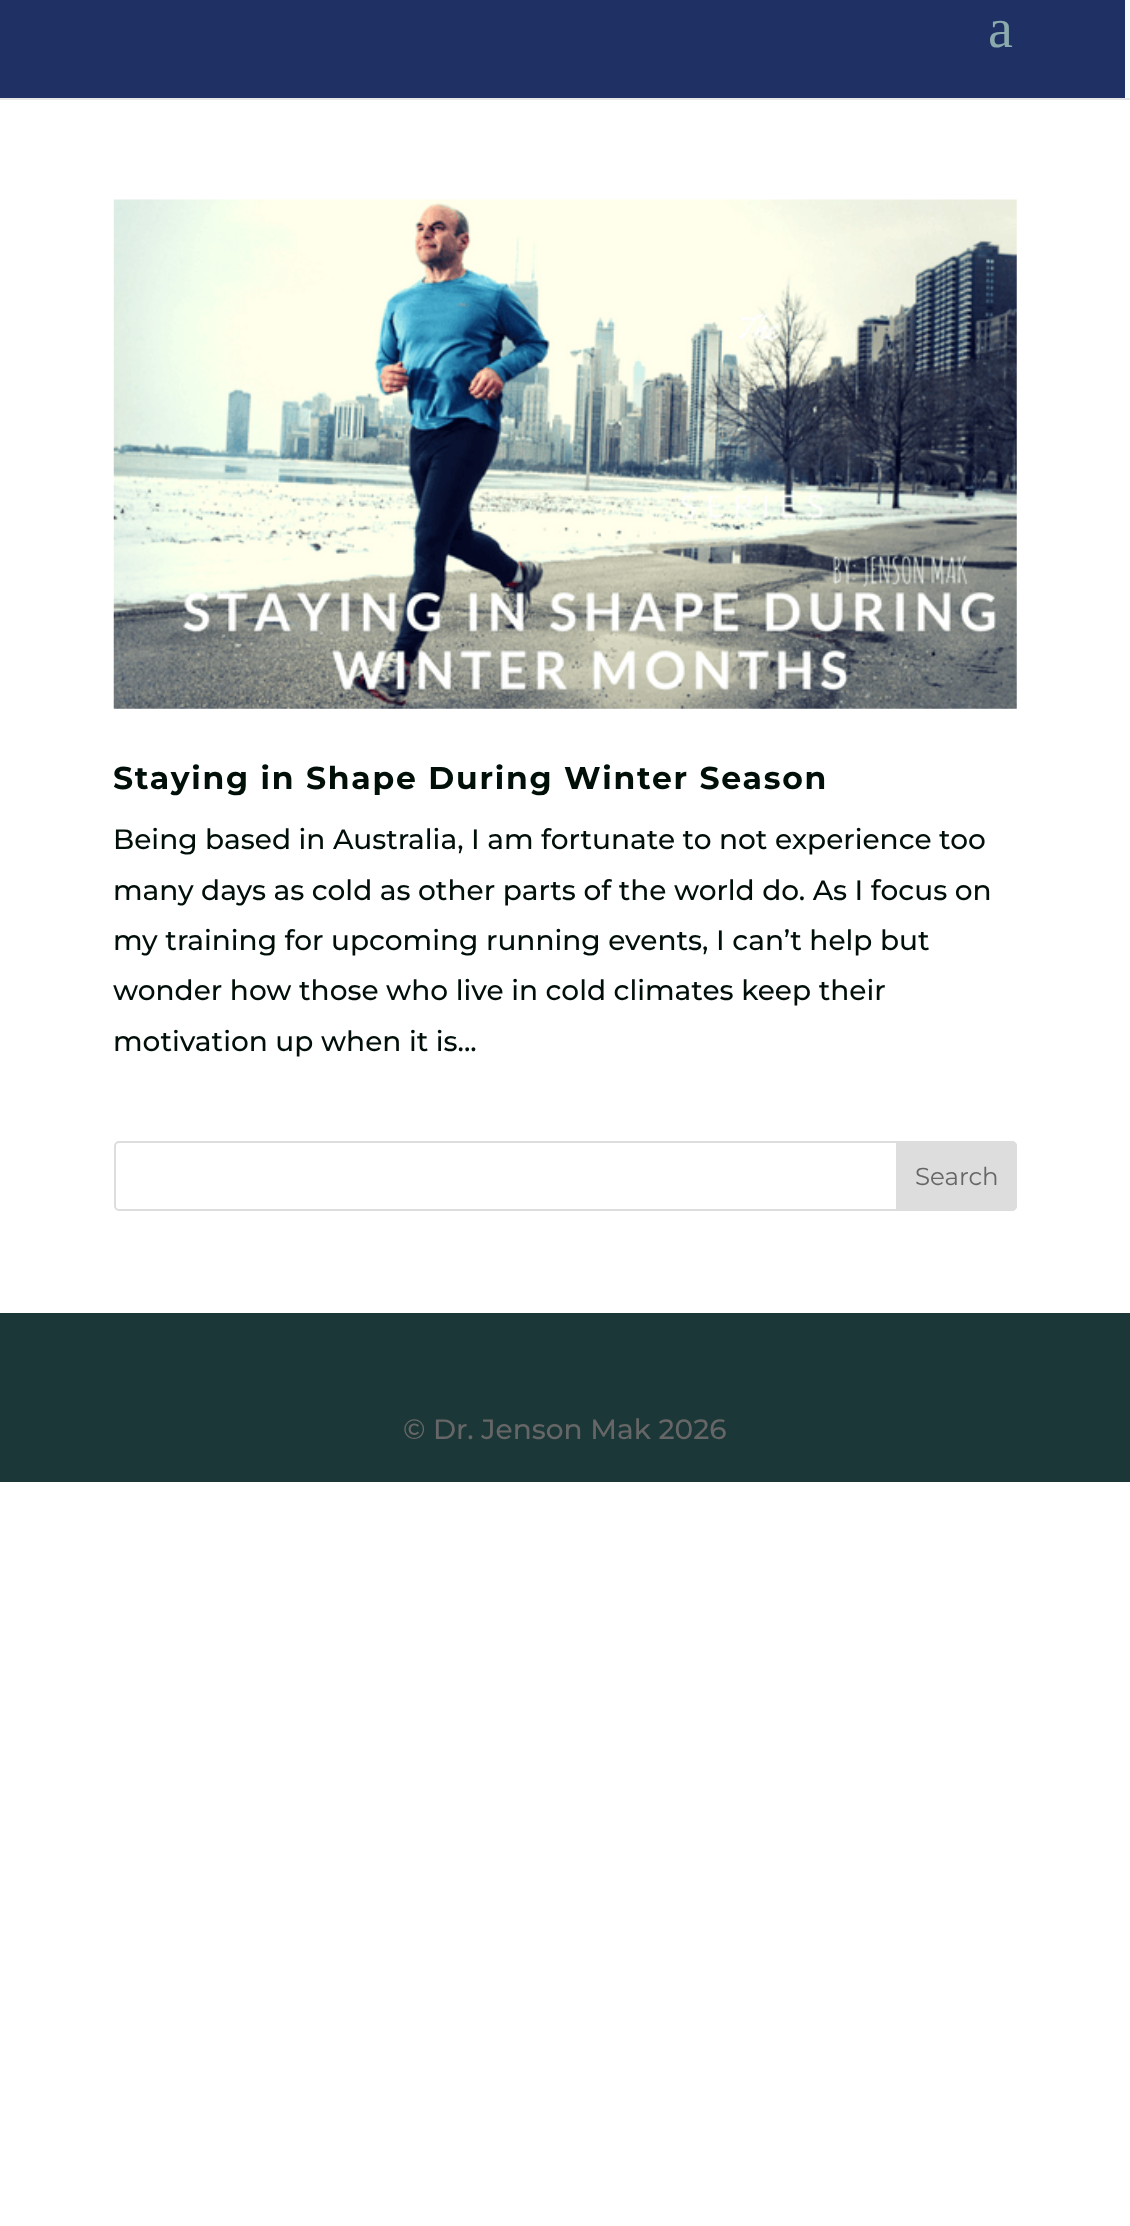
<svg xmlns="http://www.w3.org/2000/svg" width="1130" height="2226">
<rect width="100%" height="100%" fill="#fff"/>
<path d="M0 98v2h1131v-98h-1v96z" fill="#e6e6e6"/>
<rect width="1125" height="98" fill="#1f3064"/>
<rect x="1125" width="5" height="98" fill="#f4fff8"/>
<text x="988" y="47" style="font-family:Liberation Serif;font-size:56px;fill:#8baaad">a</text>
<image x="113" y="199" width="904" height="510" href="media/1.png"/>
<text x="113" y="789" style="font-family:Montserrat;font-size:31.5px;font-weight:bold;letter-spacing:1.75px;fill:#000f08">Staying in Shape During Winter Season</text>
<text x="113" y="849" style="font-family:Montserrat;font-size:28px;font-weight:500;fill:#000f08">Being based in Australia, I am fortunate to not experience too</text>
<text x="113" y="900" style="font-family:Montserrat;font-size:28px;font-weight:500;fill:#000f08">many days as cold as other parts of the world do. As I focus on</text>
<text x="113" y="950" style="font-family:Montserrat;font-size:28px;font-weight:500;fill:#000f08">my training for upcoming running events, I can’t help but</text>
<text x="113" y="1000" style="font-family:Montserrat;font-size:28px;font-weight:500;fill:#000f08">wonder how those who live in cold climates keep their</text>
<text x="113" y="1051" style="font-family:Montserrat;font-size:28px;font-weight:500;fill:#000f08">motivation up when it is...</text>
<rect x="115" y="1142" width="901" height="68" rx="4" fill="none" stroke="#ddd" stroke-width="2"/>
<path d="M897 1142h115c2 0 4 2 4 4v60c0 2-2 4-4 4h-115z" fill="#ddd" stroke="#ddd" stroke-width="2"/>
<text x="915" y="1185" style="font-family:Montserrat;font-size:24.5px;fill:#666">Search</text>
<rect y="1313" width="1130" height="169" fill="#1c3738"/>
<text x="403" y="1439" style="font-family:Montserrat;font-size:28px;font-weight:500;fill:#666">© Dr. Jenson Mak 2026</text>
</svg>
